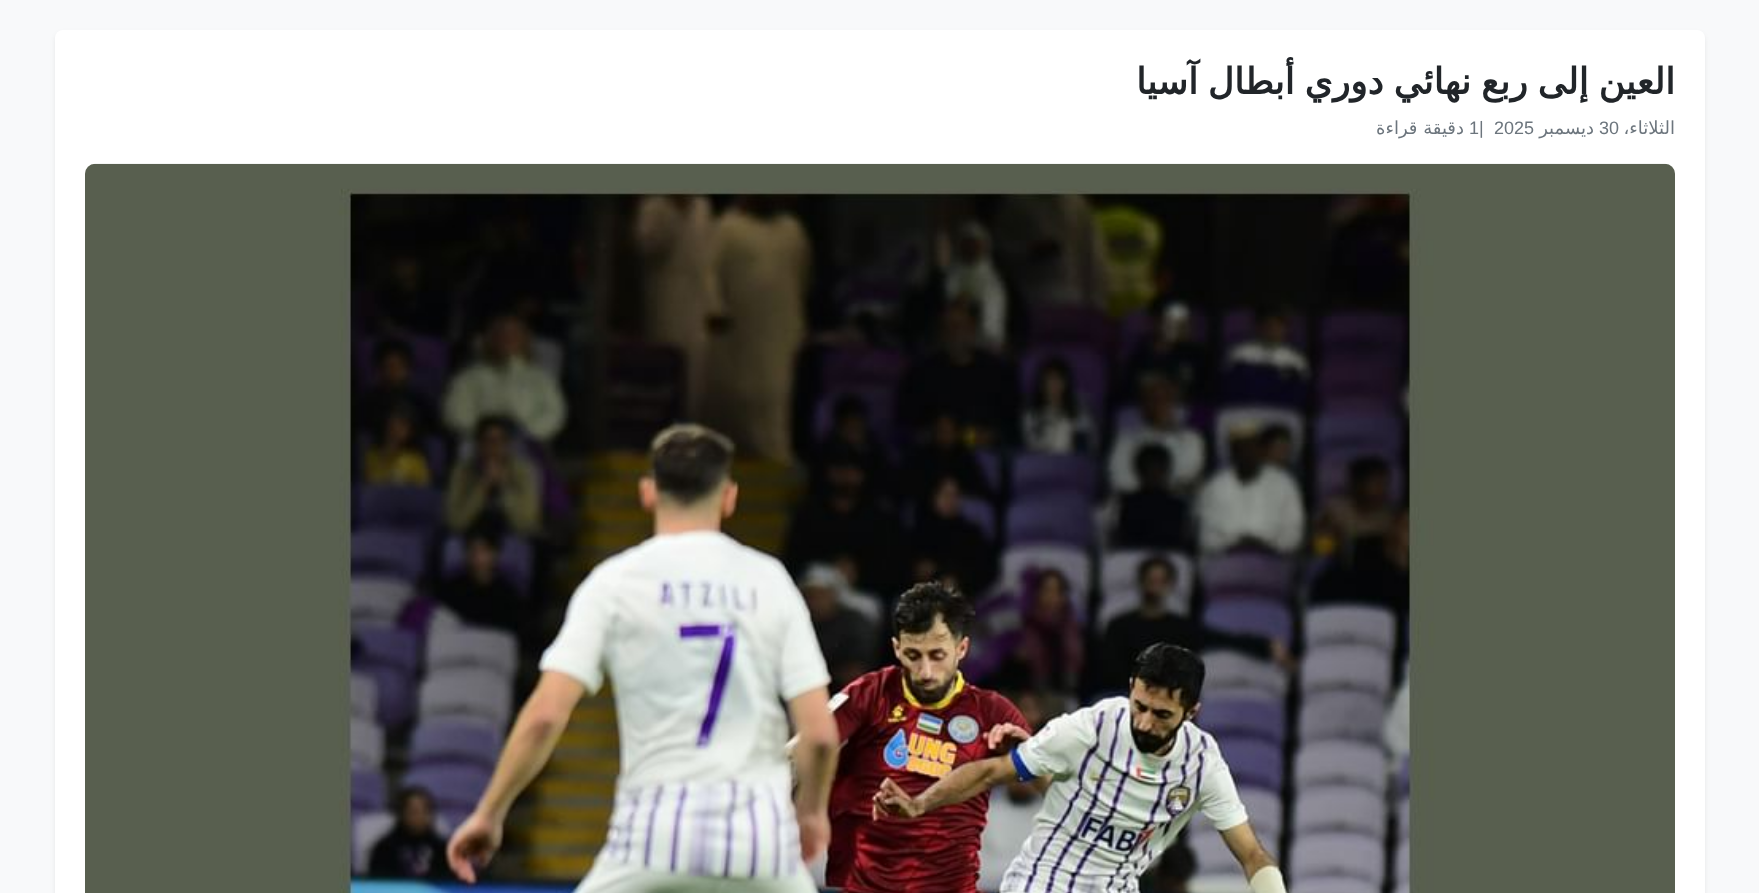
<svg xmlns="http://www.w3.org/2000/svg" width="1759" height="893">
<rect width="100%" height="100%" fill="#f8f9fa"/>
<rect x="55" y="33" width="1650" height="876" rx="8" fill="#00000012" filter="blur(2.5px)"/>
<rect x="55" y="30" width="1650" height="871" rx="8" fill="#fff"/>
<text x="1675" y="94" word-spacing="-1.5" style="font-family:DejaVu Sans;font-size:36px;font-weight:bold;direction:rtl;fill:#212529">العين إلى ربع نهائي دوري أبطال آسيا</text>
<text x="1675" y="134" style="font-family:DejaVu Sans;font-size:18px;direction:rtl;fill:#6c757d">الثلاثاء،</text>
<text x="1599" y="134" style="font-family:Liberation Sans;font-size:18px;fill:#6c757d">30</text>
<text x="1594" y="134" style="font-family:DejaVu Sans;font-size:18px;direction:rtl;fill:#6c757d">ديسمبر</text>
<text x="1494" y="134" style="font-family:Liberation Sans;font-size:18px;fill:#6c757d">2025</text>
<text x="1479" y="134" style="font-family:Liberation Sans;font-size:18px;fill:#6c757d">|</text>
<text x="1469" y="134" style="font-family:Liberation Sans;font-size:18px;fill:#6c757d">1</text>
<text x="1464" y="134" style="font-family:DejaVu Sans;font-size:18px;direction:rtl;fill:#6c757d">دقيقة قراءة</text>
<image x="85" y="163" width="1590" height="730" href="media/1.png"/>
</svg>
